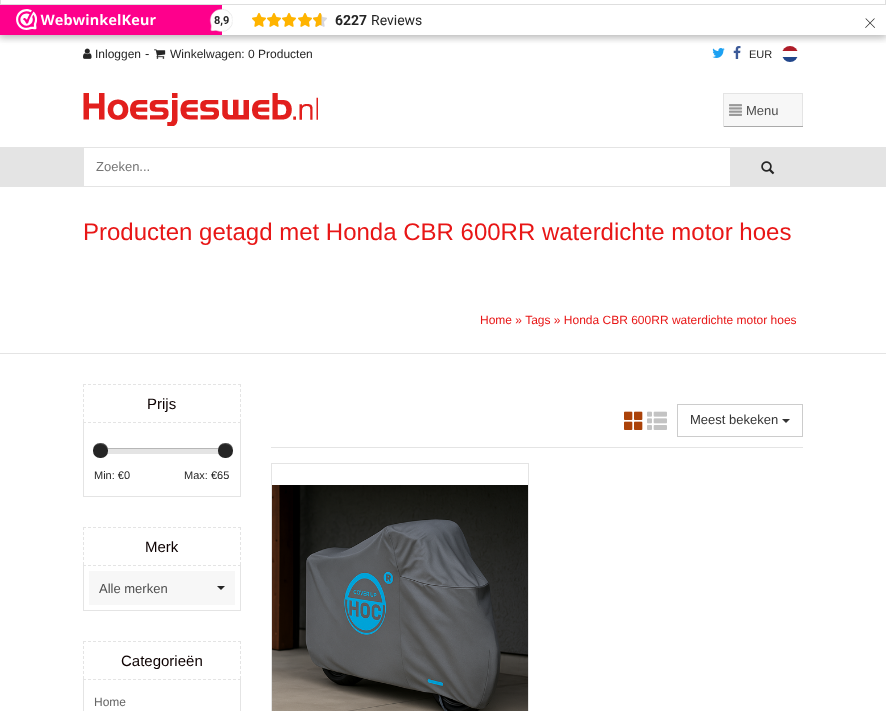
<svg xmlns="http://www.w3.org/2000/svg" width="886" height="711">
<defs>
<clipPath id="clip1"><rect x="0" y="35" width="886" height="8"/></clipPath>
</defs>
<rect width="100%" height="100%" fill="#fff"/>
<image x="733" y="46" width="8" height="13" href="media/9.png"/>
<image x="782" y="46" width="16" height="16" href="media/10.png"/>
<rect x="-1" y="-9" width="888" height="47" fill="#00000026" filter="blur(3px)"/>
<rect x="222" y="5" width="664" height="30" fill="#fff"/>
<image x="83" y="48" width="9" height="11" href="media/6.png"/>
<image x="154" y="49" width="12" height="10" href="media/7.png"/>
<image x="712" y="48" width="13" height="10" href="media/8.png"/>
<g clip-path="url(#clip1)">
<rect y="7" width="886" height="30" fill="#00000026" filter="blur(5px)"/>
</g>
<rect x="0.5" y="-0.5" width="885" height="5" fill="#fff" stroke="#dedede"/>
<rect y="5" width="222" height="30" fill="#fe008c"/>
<image x="16" y="9" width="140" height="21" href="media/1.png"/>
<image x="252" y="13" width="14" height="14" href="media/2.png"/>
<image x="267" y="13" width="14" height="14" href="media/2.png"/>
<image x="282" y="13" width="14" height="14" href="media/2.png"/>
<image x="298" y="13" width="14" height="14" href="media/2.png"/>
<image x="313" y="13" width="14" height="14" href="media/3.png"/>
<image x="313" y="13" width="9" height="14" href="media/4.png"/>
<text x="335" y="25" style="font-family:Roboto;font-size:14px;font-weight:bold;fill:#252525">6227</text>
<text x="371" y="25" style="font-family:Roboto;font-size:14px;fill:#252525">Reviews</text>
<text x="864" y="28" style="font-family:Roboto;font-size:24px;font-weight:100;fill:#252525">×</text>
<image x="209" y="8" width="24" height="25" href="media/5.png"/>
<text x="214" y="24" style="font-family:Roboto;font-size:11px;font-weight:bold;fill:#252525">8,9</text>
<text x="95" y="58" style="font-family:Liberation Sans;font-size:12px;fill:#252525">Inloggen</text>
<text x="145" y="58" style="font-family:Liberation Sans;font-size:13px;fill:#252525">-</text>
<text x="170" y="58" style="font-family:Liberation Sans;font-size:12px;fill:#252525">Winkelwagen: 0 Producten</text>
<text x="749" y="58" style="font-family:Liberation Sans;font-size:11px;fill:#252525">EUR</text>
<image x="83" y="93" width="235" height="33" href="media/11.png"/>
<rect x="724" y="94" width="78" height="32" fill="#f7f7f7"/>
<image x="729" y="104" width="13" height="12" href="media/12.png"/>
<rect x="723" y="93" width="80" height="1" fill="#e4e4e4"/>
<rect x="802" y="93" width="1" height="34" fill="#e4e4e4"/>
<rect x="723" y="126" width="80" height="1" fill="#aaa"/>
<rect x="723" y="93" width="1" height="34" fill="#e4e4e4"/>
<text x="746" y="115" style="font-family:Liberation Sans;font-size:13px;fill:#4e4e4e">Menu</text>
<rect y="147" width="886" height="40" fill="#e4e4e4"/>
<rect x="84" y="148" width="646" height="38" fill="#fff"/>
<text x="96" y="171" style="font-family:Liberation Sans;font-size:13px;fill:#757575">Zoeken...</text>
<image x="761" y="161" width="14" height="14" href="media/13.png"/>
<rect y="353" width="886" height="1" fill="#e4e4e4"/>
<text x="83" y="240" style="font-family:Liberation Sans;font-size:24px;fill:#e81616">Producten getagd met Honda CBR 600RR waterdichte motor hoes</text>
<text x="480" y="324" style="font-family:Liberation Sans;font-size:12px;fill:#e81616">Home » Tags » Honda CBR 600RR waterdichte motor hoes</text>
<path d="M83 384.5h158" fill="none" stroke="#e4e4e4" stroke-dasharray="3 2"/>
<path d="M240.5 384v38" fill="none" stroke="#e4e4e4" stroke-dasharray="3 2"/>
<path d="M83.5 384v38" fill="none" stroke="#e4e4e4" stroke-dasharray="3 2"/>
<text x="147" y="409" style="font-family:Liberation Sans;font-size:15px;fill:#0c0000">Prijs</text>
<path d="M83 422.5h158" fill="none" stroke="#e4e4e4" stroke-dasharray="3 2"/>
<rect x="240" y="422" width="1" height="75" fill="#e4e4e4"/>
<rect x="83" y="496" width="158" height="1" fill="#e4e4e4"/>
<rect x="83" y="422" width="1" height="75" fill="#e4e4e4"/>
<rect x="102" y="449" width="125" height="5" fill="#e4e4e4"/>
<rect x="102" y="448" width="125" height="1" fill="#b6b6b6"/>
<rect x="93" y="443" width="15" height="15" rx="7" fill="#252525"/>
<path d="M100 444c5 0 7.5 3.5 8 7c0-10.5-15-11-15-.5c0-3.5 2.5-6.5 7-6.5z" fill="#ffffff33"/>
<rect x="218" y="443" width="15" height="15" rx="7" fill="#252525"/>
<path d="M225 444c5 0 7.5 3.5 8 7c0-10.5-15-11-15-.5c0-3.5 2.5-6.5 7-6.5z" fill="#ffffff33"/>
<text x="94" y="479" style="font-family:Liberation Sans;font-size:11px;fill:#252525">Min: €0</text>
<text x="184" y="479" style="font-family:Liberation Sans;font-size:11px;fill:#252525">Max: €65</text>
<path d="M83 527.5h158" fill="none" stroke="#e4e4e4" stroke-dasharray="3 2"/>
<path d="M240.5 527v38" fill="none" stroke="#e4e4e4" stroke-dasharray="3 2"/>
<path d="M83.5 527v38" fill="none" stroke="#e4e4e4" stroke-dasharray="3 2"/>
<text x="145" y="552" style="font-family:Liberation Sans;font-size:15px;fill:#0c0000">Merk</text>
<path d="M83 565.5h158" fill="none" stroke="#e4e4e4" stroke-dasharray="3 2"/>
<rect x="240" y="565" width="1" height="46" fill="#e4e4e4"/>
<rect x="83" y="610" width="158" height="1" fill="#e4e4e4"/>
<rect x="83" y="565" width="1" height="46" fill="#e4e4e4"/>
<rect x="89" y="571" width="146" height="34" fill="#f7f7f7"/>
<text x="99" y="593" style="font-family:Liberation Sans;font-size:13px;fill:#4e4e4e">Alle merken</text>
<path d="M217 586h8l-4 4z" fill="#252525"/>
<path d="M83 641.5h158" fill="none" stroke="#e4e4e4" stroke-dasharray="3 2"/>
<path d="M240.5 641v38" fill="none" stroke="#e4e4e4" stroke-dasharray="3 2"/>
<path d="M83.5 641v38" fill="none" stroke="#e4e4e4" stroke-dasharray="3 2"/>
<text x="121" y="666" style="font-family:Liberation Sans;font-size:15px;fill:#0c0000">Categorieën</text>
<path d="M83 679.5h158" fill="none" stroke="#e4e4e4" stroke-dasharray="3 2"/>
<rect x="240" y="679" width="1" height="32" fill="#e4e4e4"/>
<rect x="83" y="679" width="1" height="32" fill="#e4e4e4"/>
<text x="94" y="706" style="font-family:Liberation Sans;font-size:12px;fill:#666">Home</text>
<image x="624" y="411" width="19" height="19" href="media/14.png"/>
<image x="647" y="411" width="20" height="19" href="media/15.png"/>
<rect x="677.5" y="404.5" width="125" height="32" fill="none" stroke="#ccc"/>
<text x="690" y="424" style="font-family:Liberation Sans;font-size:13px;fill:#333">Meest bekeken</text>
<path d="M782 419h8l-4 4z" fill="#333"/>
<rect x="271" y="447" width="532" height="1" fill="#e4e4e4"/>
<rect x="271.5" y="463.5" width="257" height="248" fill="none" stroke="#e4e4e4"/>
<image x="272" y="485" width="256" height="226" href="media/16.png"/>
</svg>
